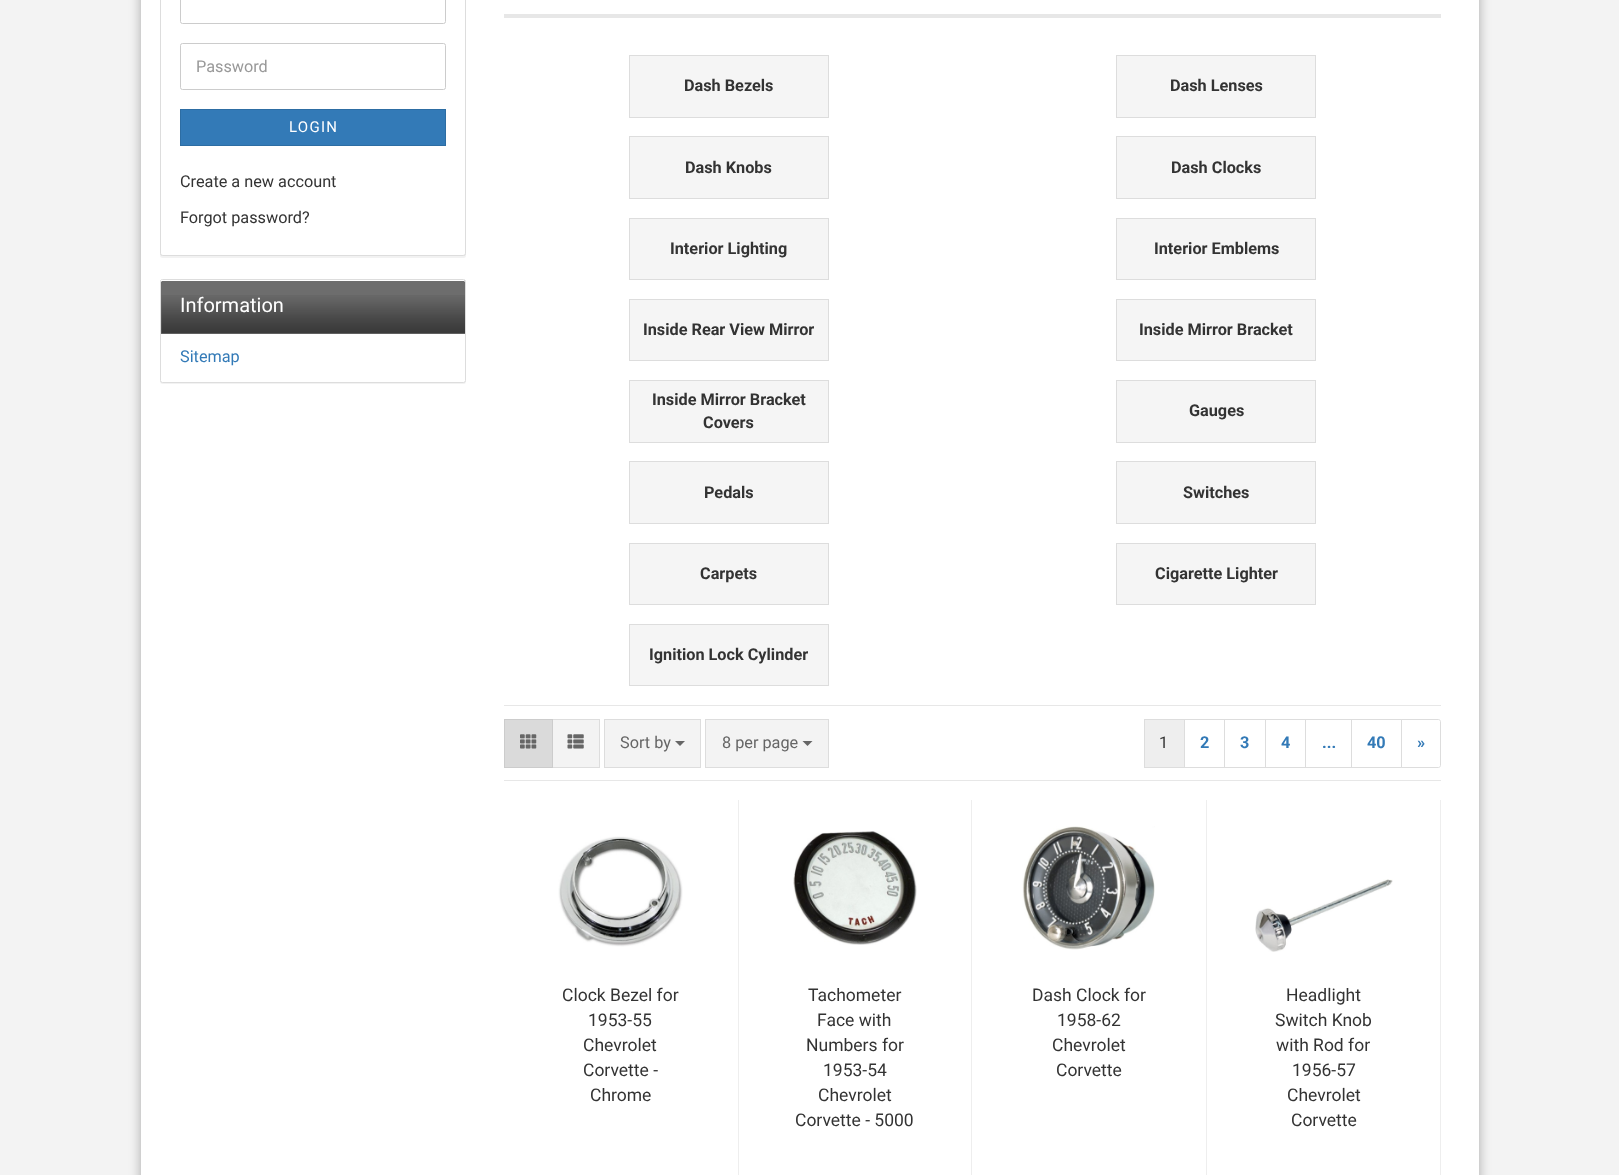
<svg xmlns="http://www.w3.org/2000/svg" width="1619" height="1175">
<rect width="100%" height="100%" fill="#f3f3f3"/>
<rect x="141" y="-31" width="1338" height="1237" rx="13" fill="#0000004d" filter="blur(6px)"/>
<rect x="141" width="1338" height="1175" fill="#fff"/>
<rect x="160" y="-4" width="306" height="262" rx="2.5" fill="#0000000d" filter="blur(0.5px)"/>
<rect x="160.5" y="-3.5" width="305" height="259" rx="2" fill="none" stroke="#ddd"/>
<path d="M161-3h304v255.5c0 1.5-1 2.5-2.5 2.5h-299c-1.5 0-2.5-1-2.5-2.5z" fill="#fff"/>
<rect x="180.5" y="-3.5" width="265" height="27" rx="2" fill="none" stroke="#ccc"/>
<rect x="180.5" y="43.5" width="265" height="46" rx="2" fill="none" stroke="#ccc"/>
<text x="196" y="72" style="font-family:Roboto;font-size:16.25px;fill:#999">Password</text>
<rect x="180.5" y="109.5" width="265" height="36" fill="#337ab7" stroke="#2d6da3"/>
<text x="289" y="132" style="font-family:Roboto;font-size:15px;letter-spacing:1.25px;fill:#fff">LOGIN</text>
<text x="180" y="187" style="font-family:Roboto;font-size:16.25px;fill:#333">Create a new account</text>
<text x="180" y="223" style="font-family:Roboto;font-size:16.25px;fill:#333">Forgot password?</text>
<rect x="160" y="280" width="306" height="104" rx="2.5" fill="#0000000d" filter="blur(0.5px)"/>
<rect x="160.5" y="279.5" width="305" height="103" rx="2" fill="#fff" stroke="#ddd"/>
<path d="M162 280h302c.5 0 1 .5 1 1v53h-304v-53c0-.5 .5-1 1-1z" fill="#6d6d6d"/>
<image x="161" y="295" width="304" height="39" href="media/1.png"/>
<path d="M162 281h302l1 1c0-1 0-2-1-2h-302h-1v2z" fill="#fff"/>
<text x="180" y="312" style="font-family:Roboto;font-size:20px;fill:#fff">Information</text>
<text x="180" y="362" style="font-family:Roboto;font-size:16.25px;fill:#337ab7">Sitemap</text>
<rect x="504" y="14" width="937" height="4" fill="#e7e7e7"/>
<rect x="629.5" y="55.5" width="199" height="62" fill="#f5f5f5" stroke="#ddd"/>
<text x="684" y="91" style="font-family:Roboto;font-size:16.25px;font-weight:bold;fill:#333">Dash Bezels</text>
<rect x="1116.5" y="55.5" width="199" height="62" fill="#f5f5f5" stroke="#ddd"/>
<text x="1170" y="91" style="font-family:Roboto;font-size:16.25px;font-weight:bold;fill:#333">Dash Lenses</text>
<rect x="629.5" y="136.5" width="199" height="62" fill="#f5f5f5" stroke="#ddd"/>
<text x="685" y="173" style="font-family:Roboto;font-size:16.25px;font-weight:bold;fill:#333">Dash Knobs</text>
<rect x="1116.5" y="136.5" width="199" height="62" fill="#f5f5f5" stroke="#ddd"/>
<text x="1171" y="173" style="font-family:Roboto;font-size:16.25px;font-weight:bold;fill:#333">Dash Clocks</text>
<rect x="629.5" y="218.5" width="199" height="61" fill="#f5f5f5" stroke="#ddd"/>
<text x="670" y="254" style="font-family:Roboto;font-size:16.25px;font-weight:bold;fill:#333">Interior Lighting</text>
<rect x="1116.5" y="218.5" width="199" height="61" fill="#f5f5f5" stroke="#ddd"/>
<text x="1154" y="254" style="font-family:Roboto;font-size:16.25px;font-weight:bold;fill:#333">Interior Emblems</text>
<rect x="629.5" y="299.5" width="199" height="61" fill="#f5f5f5" stroke="#ddd"/>
<text x="643" y="335" style="font-family:Roboto;font-size:16.25px;font-weight:bold;fill:#333">Inside Rear View Mirror</text>
<rect x="1116.5" y="299.5" width="199" height="61" fill="#f5f5f5" stroke="#ddd"/>
<text x="1139" y="335" style="font-family:Roboto;font-size:16.25px;font-weight:bold;fill:#333">Inside Mirror Bracket</text>
<rect x="629.5" y="380.5" width="199" height="62" fill="#f5f5f5" stroke="#ddd"/>
<text x="652" y="405" style="font-family:Roboto;font-size:16.25px;font-weight:bold;fill:#333">Inside Mirror Bracket</text>
<text x="703" y="428" style="font-family:Roboto;font-size:16.25px;font-weight:bold;fill:#333">Covers</text>
<rect x="1116.5" y="380.5" width="199" height="62" fill="#f5f5f5" stroke="#ddd"/>
<text x="1189" y="416" style="font-family:Roboto;font-size:16.25px;font-weight:bold;fill:#333">Gauges</text>
<rect x="629.5" y="461.5" width="199" height="62" fill="#f5f5f5" stroke="#ddd"/>
<text x="704" y="498" style="font-family:Roboto;font-size:16.25px;font-weight:bold;fill:#333">Pedals</text>
<rect x="1116.5" y="461.5" width="199" height="62" fill="#f5f5f5" stroke="#ddd"/>
<text x="1183" y="498" style="font-family:Roboto;font-size:16.25px;font-weight:bold;fill:#333">Switches</text>
<rect x="629.5" y="543.5" width="199" height="61" fill="#f5f5f5" stroke="#ddd"/>
<text x="700" y="579" style="font-family:Roboto;font-size:16.25px;font-weight:bold;fill:#333">Carpets</text>
<rect x="1116.5" y="543.5" width="199" height="61" fill="#f5f5f5" stroke="#ddd"/>
<text x="1155" y="579" style="font-family:Roboto;font-size:16.25px;font-weight:bold;fill:#333">Cigarette Lighter</text>
<rect x="629.5" y="624.5" width="199" height="61" fill="#f5f5f5" stroke="#ddd"/>
<text x="649" y="660" style="font-family:Roboto;font-size:16.25px;font-weight:bold;fill:#333">Ignition Lock Cylinder</text>
<rect x="504" y="705" width="937" height="1" fill="#e7e7e7"/>
<rect x="504" y="780" width="937" height="1" fill="#e7e7e7"/>
<rect x="553" y="720" width="46" height="47" fill="#f3f3f3"/>
<rect x="551.5" y="719.5" width="48" height="48" fill="none" stroke="#ddd"/>
<rect x="504.5" y="719.5" width="48" height="48" fill="#dadada" stroke="#ccc"/>
<image x="520" y="734" width="17" height="15" href="media/2.png"/>
<image x="567" y="734" width="17" height="15" href="media/3.png"/>
<rect x="604.5" y="719.5" width="96" height="48" fill="#f3f3f3" stroke="#ddd"/>
<text x="620" y="748" style="font-family:Roboto;font-size:16.25px;fill:#666">Sort by</text>
<path d="M675 741h10l-5 5z" fill="#666"/>
<rect x="705.5" y="719.5" width="123" height="48" fill="#f3f3f3" stroke="#ddd"/>
<text x="722" y="748" style="font-family:Roboto;font-size:16.25px;fill:#666">8 per page</text>
<path d="M802.5 741h10l-5 5z" fill="#666"/>
<rect x="1144.5" y="719.5" width="40" height="48" fill="#eee" stroke="#ddd"/>
<text x="1159" y="748" style="font-family:Roboto;font-size:16.25px;fill:#333">1</text>
<rect x="1184.5" y="719.5" width="40" height="48" fill="none" stroke="#ddd"/>
<text x="1200" y="748" style="font-family:Roboto;font-size:16.25px;font-weight:bold;fill:#337ab7">2</text>
<rect x="1224.5" y="719.5" width="41" height="48" fill="none" stroke="#ddd"/>
<text x="1240" y="748" style="font-family:Roboto;font-size:16.25px;font-weight:bold;fill:#337ab7">3</text>
<rect x="1265.5" y="719.5" width="40" height="48" fill="none" stroke="#ddd"/>
<text x="1281" y="748" style="font-family:Roboto;font-size:16.25px;font-weight:bold;fill:#337ab7">4</text>
<rect x="1305.5" y="719.5" width="47" height="48" fill="none" stroke="#ddd"/>
<text x="1322" y="748" style="font-family:Roboto;font-size:16.25px;font-weight:bold;fill:#337ab7">...</text>
<rect x="1352" y="720" width="1" height="47" fill="#fff"/>
<rect x="1351.5" y="719.5" width="51" height="48" fill="none" stroke="#ddd"/>
<text x="1367" y="748" style="font-family:Roboto;font-size:16.25px;font-weight:bold;fill:#337ab7">40</text>
<path d="M1401.5 719.5h37c1 0 2 1 2 2v44c0 1-1 2-2 2h-37z" fill="#fff" stroke="#ddd"/>
<text x="1417" y="748" style="font-family:Roboto;font-size:16.25px;font-weight:bold;fill:#337ab7">»</text>
<rect x="738" y="800" width="1" height="375" fill="#eee"/>
<image x="558" y="836" width="125" height="111" href="media/4.png"/>
<text x="562" y="1001" style="font-family:Roboto;font-size:17.5px;fill:#333">Clock Bezel for</text>
<text x="588" y="1026" style="font-family:Roboto;font-size:17.5px;fill:#333">1953-55</text>
<text x="583" y="1051" style="font-family:Roboto;font-size:17.5px;fill:#333">Chevrolet</text>
<text x="583" y="1076" style="font-family:Roboto;font-size:17.5px;fill:#333">Corvette -</text>
<text x="590" y="1101" style="font-family:Roboto;font-size:17.5px;fill:#333">Chrome</text>
<rect x="971" y="800" width="1" height="375" fill="#eee"/>
<image x="793" y="831" width="124" height="114" href="media/5.png"/>
<text x="808" y="1001" style="font-family:Roboto;font-size:17.5px;fill:#333">Tachometer</text>
<text x="817" y="1026" style="font-family:Roboto;font-size:17.5px;fill:#333">Face with</text>
<text x="806" y="1051" style="font-family:Roboto;font-size:17.5px;fill:#333">Numbers for</text>
<text x="823" y="1076" style="font-family:Roboto;font-size:17.5px;fill:#333">1953-54</text>
<text x="818" y="1101" style="font-family:Roboto;font-size:17.5px;fill:#333">Chevrolet</text>
<text x="795" y="1126" style="font-family:Roboto;font-size:17.5px;fill:#333">Corvette - 5000</text>
<rect x="1206" y="800" width="1" height="375" fill="#eee"/>
<image x="1022" y="826" width="133" height="124" href="media/6.png"/>
<text x="1032" y="1001" style="font-family:Roboto;font-size:17.5px;fill:#333">Dash Clock for</text>
<text x="1057" y="1026" style="font-family:Roboto;font-size:17.5px;fill:#333">1958-62</text>
<text x="1052" y="1051" style="font-family:Roboto;font-size:17.5px;fill:#333">Chevrolet</text>
<text x="1056" y="1076" style="font-family:Roboto;font-size:17.5px;fill:#333">Corvette</text>
<rect x="1440" y="800" width="1" height="375" fill="#eee"/>
<image x="1255" y="879" width="138" height="73" href="media/7.png"/>
<text x="1286" y="1001" style="font-family:Roboto;font-size:17.5px;fill:#333">Headlight</text>
<text x="1275" y="1026" style="font-family:Roboto;font-size:17.5px;fill:#333">Switch Knob</text>
<text x="1276" y="1051" style="font-family:Roboto;font-size:17.5px;fill:#333">with Rod for</text>
<text x="1292" y="1076" style="font-family:Roboto;font-size:17.5px;fill:#333">1956-57</text>
<text x="1287" y="1101" style="font-family:Roboto;font-size:17.5px;fill:#333">Chevrolet</text>
<text x="1291" y="1126" style="font-family:Roboto;font-size:17.5px;fill:#333">Corvette</text>
</svg>
